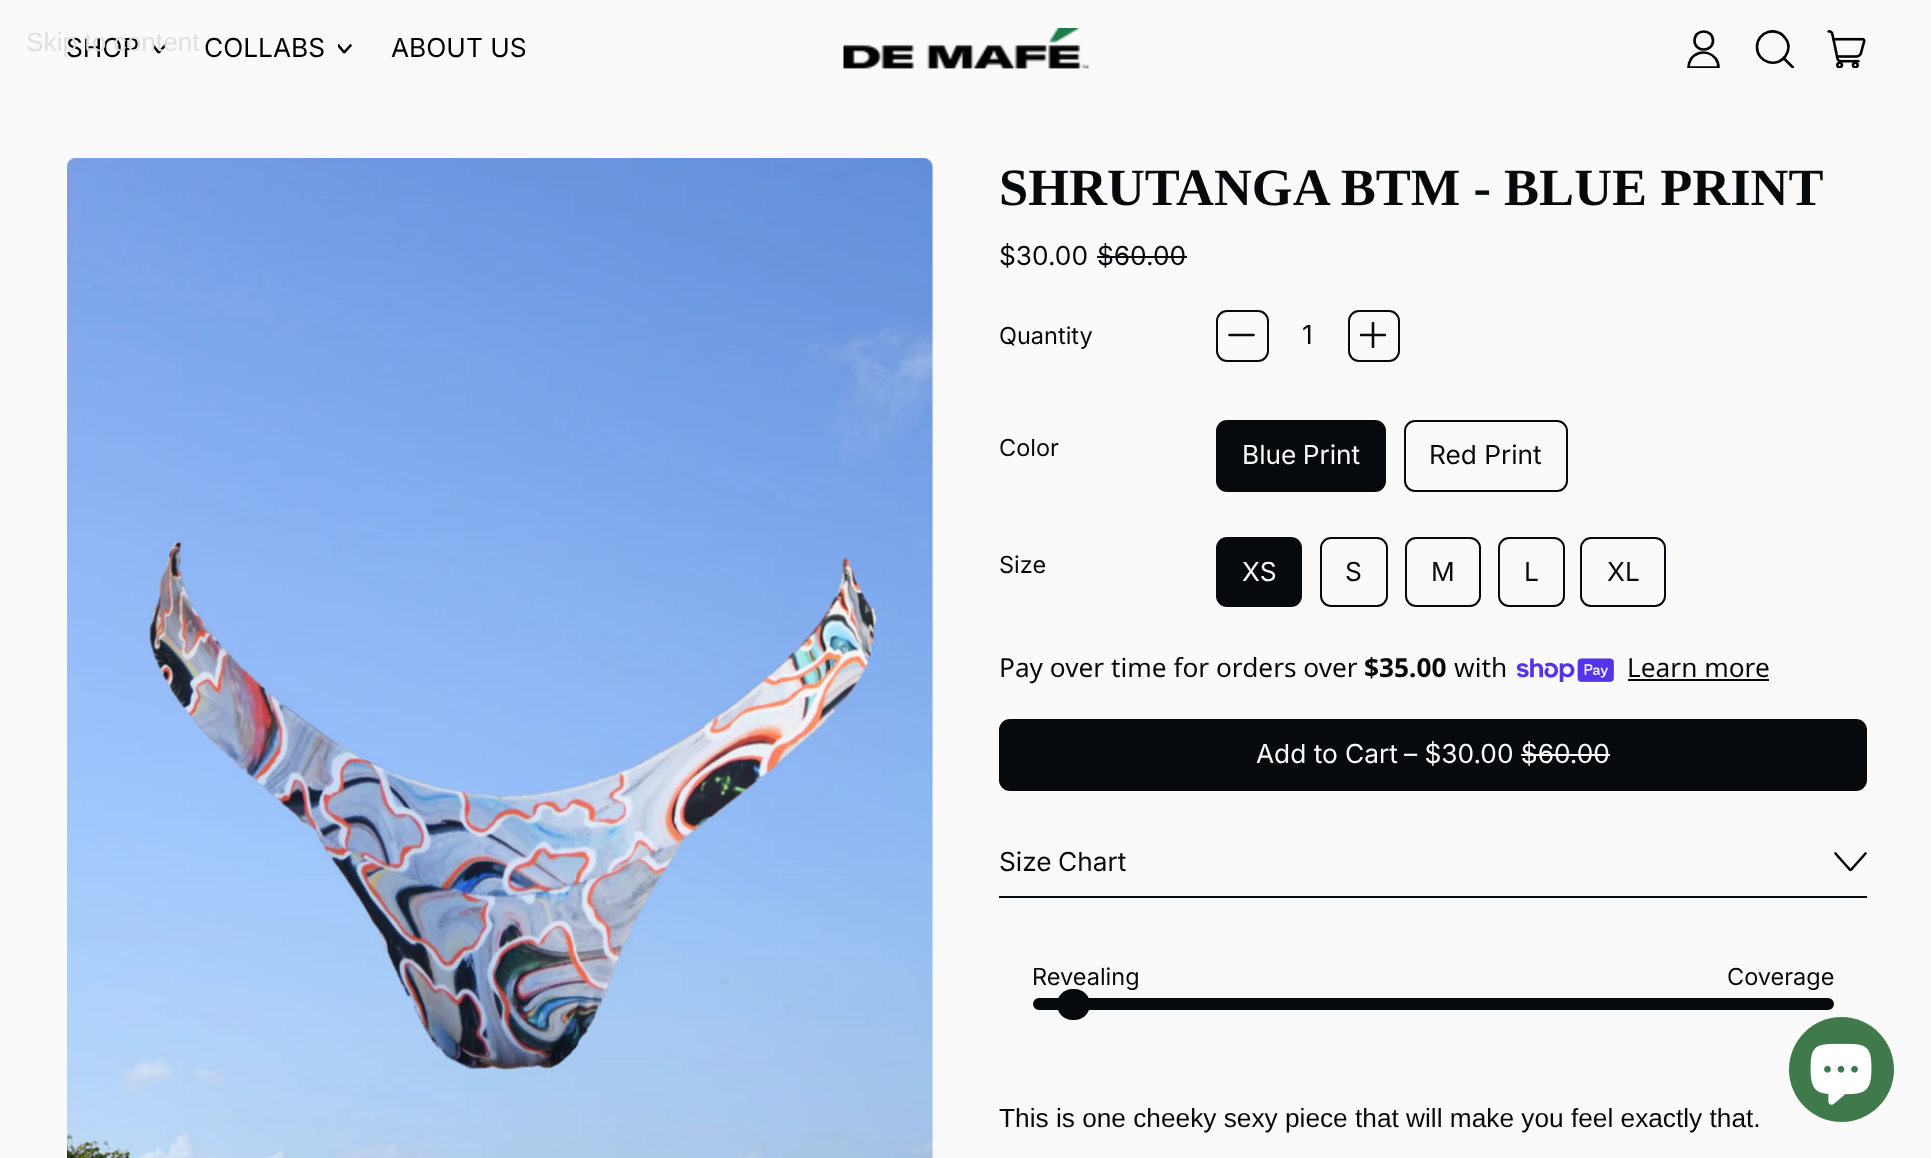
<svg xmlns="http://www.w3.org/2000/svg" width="1931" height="1158">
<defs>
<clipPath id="clip1"><rect x="152" y="42" width="13" height="14"/></clipPath>
<clipPath id="clip2"><rect x="338" y="42" width="14" height="14"/></clipPath>
<clipPath id="clip3"><rect x="1684" y="30" width="38" height="38"/></clipPath>
<clipPath id="clip4"><rect x="1755" y="30" width="39" height="38"/></clipPath>
<clipPath id="clip5"><rect x="1360" y="322" width="26" height="26"/></clipPath>
</defs>
<rect width="100%" height="100%" fill="#fafafa"/>
<text x="66" y="57" style="font-family:Inter;font-size:26.25px;fill:#000">SHOP</text>
<g clip-path="url(#clip1)">
<path d="M153 45.5l4.5 5.5c1.5 1.5 1 1.5 2.5 0l5-5.5" fill="none" stroke="#000" stroke-width="2.6" stroke-linecap="round" stroke-linejoin="round"/>
</g>
<text x="26" y="51" style="font-family:Liberation Sans;font-size:26.25px;fill:#dfdfdf">Skip to content</text>
<text x="204" y="57" style="font-family:Inter;font-size:26.25px;fill:#000">COLLABS</text>
<g clip-path="url(#clip2)">
<path d="M338.5 45.5l4.5 5.5c1.5 1.5 1 1.5 2.5 0l5-5.5" fill="none" stroke="#000" stroke-width="2.6" stroke-linecap="round" stroke-linejoin="round"/>
</g>
<text x="391" y="57" style="font-family:Inter;font-size:26.25px;fill:#000">ABOUT US</text>
<image x="843" y="28" width="246" height="41" href="media/1.png"/>
<path d="M1694.5 40.5c0 12 18.5 12 18.5 0c0-12-18.5-12-18.5 0z" fill="none" stroke="#000" stroke-width="2.6" stroke-linecap="round" stroke-linejoin="round"/>
<g clip-path="url(#clip3)">
<path d="M1688.5 67.5c0-3 1-6 2.5-8.5c8-12 27.5-6.5 27.5 8.5z" fill="none" stroke="#000" stroke-width="2.6" stroke-linecap="round" stroke-linejoin="round"/>
</g>
<path d="M1757 47c0 15.5 20 21.5 28.5 9c2-3 3-6 3-9c0-3-1-6-3-8.5c-8.5-13-28.5-7-28.5 8.5z" fill="none" stroke="#000" stroke-width="2.6" stroke-linecap="round" stroke-linejoin="round"/>
<g clip-path="url(#clip4)">
<path d="M1793 67.5l-9.5-9.5" fill="none" stroke="#000" stroke-width="2.6" stroke-linecap="round" stroke-linejoin="round"/>
</g>
<image x="1827" y="30" width="39" height="38" href="media/2.png"/>
<image x="67" y="158" width="867" height="1000" href="media/3.png"/>
<text x="999" y="205" style="font-family:Liberation Serif;font-size:52.5px;font-weight:bold;fill:#070a0c">SHRUTANGA BTM - BLUE PRINT</text>
<text x="999" y="265" style="font-family:Inter;font-size:26.25px;fill:#070a0c">$30.00</text>
<text x="1097" y="265" style="font-family:Inter;font-size:26.25px;fill:#070a0c">$60.00</text>
<rect x="1097" y="256" width="90" height="2" fill="#070a0c"/>
<text x="999" y="344" style="font-family:Inter;font-size:23.5px;fill:#070a0c">Quantity</text>
<rect x="1217" y="311" width="51" height="50" rx="10" fill="none" stroke="#070a0c" stroke-width="2"/>
<path d="M1253.5 335h-24" fill="none" stroke="#070a0c" stroke-width="2.6" stroke-linecap="round" stroke-linejoin="round"/>
<text x="1302" y="344" style="font-family:Inter;font-size:26.25px;fill:#070a0c">1</text>
<rect x="1349" y="311" width="50" height="50" rx="10" fill="none" stroke="#070a0c" stroke-width="2"/>
<g clip-path="url(#clip5)">
<path d="M1373 323v24m12-12h-24" fill="none" stroke="#070a0c" stroke-width="2.6" stroke-linecap="round" stroke-linejoin="round"/>
</g>
<text x="999" y="456" style="font-family:Inter;font-size:23.5px;fill:#070a0c">Color</text>
<rect x="1216" y="420" width="170" height="72" rx="11" fill="#070a0c"/>
<text x="1242" y="464" word-spacing="-1" style="font-family:Inter;font-size:26.25px;fill:#fafafa">Blue Print</text>
<rect x="1405" y="421" width="162" height="70" rx="10" fill="none" stroke="#070a0c" stroke-width="2"/>
<text x="1429" y="464" style="font-family:Inter;font-size:26.25px;fill:#070a0c">Red Print</text>
<text x="999" y="573" style="font-family:Inter;font-size:23.5px;fill:#070a0c">Size</text>
<rect x="1216" y="537" width="86" height="70" rx="11" fill="#070a0c"/>
<text x="1242" y="581" style="font-family:Inter;font-size:26.25px;fill:#fafafa">XS</text>
<rect x="1321" y="538" width="66" height="68" rx="10" fill="none" stroke="#070a0c" stroke-width="2"/>
<text x="1345" y="581" style="font-family:Inter;font-size:26.25px;fill:#070a0c">S</text>
<rect x="1406" y="538" width="74" height="68" rx="10" fill="none" stroke="#070a0c" stroke-width="2"/>
<text x="1431" y="581" style="font-family:Inter;font-size:26.25px;fill:#070a0c">M</text>
<rect x="1499" y="538" width="65" height="68" rx="10" fill="none" stroke="#070a0c" stroke-width="2"/>
<text x="1524" y="581" style="font-family:Inter;font-size:26.25px;fill:#070a0c">L</text>
<rect x="1581" y="538" width="84" height="68" rx="10" fill="none" stroke="#070a0c" stroke-width="2"/>
<text x="1607" y="581" style="font-family:Inter;font-size:26.25px;fill:#070a0c">XL</text>
<text x="999" y="677" style="font-family:Noto Sans;font-size:26.25px;fill:#070a0c">Pay over time for orders over</text>
<text x="1364" y="677" style="font-family:Noto Sans;font-size:26.25px;font-weight:bold;fill:#070a0c">$35.00</text>
<text x="1454" y="677" style="font-family:Noto Sans;font-size:26.25px;fill:#070a0c">with</text>
<image x="1516" y="658" width="98" height="24" href="media/4.png"/>
<text x="1627" y="677" style="font-family:Noto Sans;font-size:26.25px;fill:#070a0c">Learn more</text>
<rect x="1628" y="679" width="141" height="2" fill="#070a0c"/>
<rect x="999" y="719" width="868" height="72" rx="11" fill="#070a0c"/>
<text x="1256" y="763" style="font-family:Inter;font-size:26.25px;fill:#fafafa">Add to Cart</text>
<text x="1404" y="763" style="font-family:Inter;font-size:26.25px;fill:#fafafa">– $30.00 $60.00</text>
<rect x="1521" y="754" width="89" height="2" fill="#fafafa"/>
<rect x="999" y="896" width="868" height="2" fill="#070a0c"/>
<text x="999" y="871" word-spacing="-1" style="font-family:Inter;font-size:26.25px;fill:#070a0c">Size Chart</text>
<path d="M1835.5 853.5l12 13.5c3.5 4 2.5 4 6 0l12-13.5" fill="none" stroke="#070a0c" stroke-width="2.6" stroke-linecap="round" stroke-linejoin="round"/>
<text x="1032" y="985" style="font-family:Inter;font-size:23.5px;fill:#070a0c">Revealing</text>
<text x="1727" y="985" style="font-family:Inter;font-size:23.5px;fill:#070a0c">Coverage</text>
<rect x="1034" y="999" width="799" height="10" rx="5" fill="#070a0c" stroke="#070a0c" stroke-width="2"/>
<rect x="1057" y="989" width="33" height="31" rx="15.5" fill="#070a0c"/>
<text x="999" y="1127" style="font-family:Liberation Sans;font-size:26.25px;fill:#070a0c">This is one cheeky sexy piece that will make you feel exactly that.</text>
<circle cx="1841.5" cy="1069.5" r="52.5" fill="#40794b"/>
<image x="1810" y="1043" width="62" height="62" href="media/5.png"/>
</svg>
